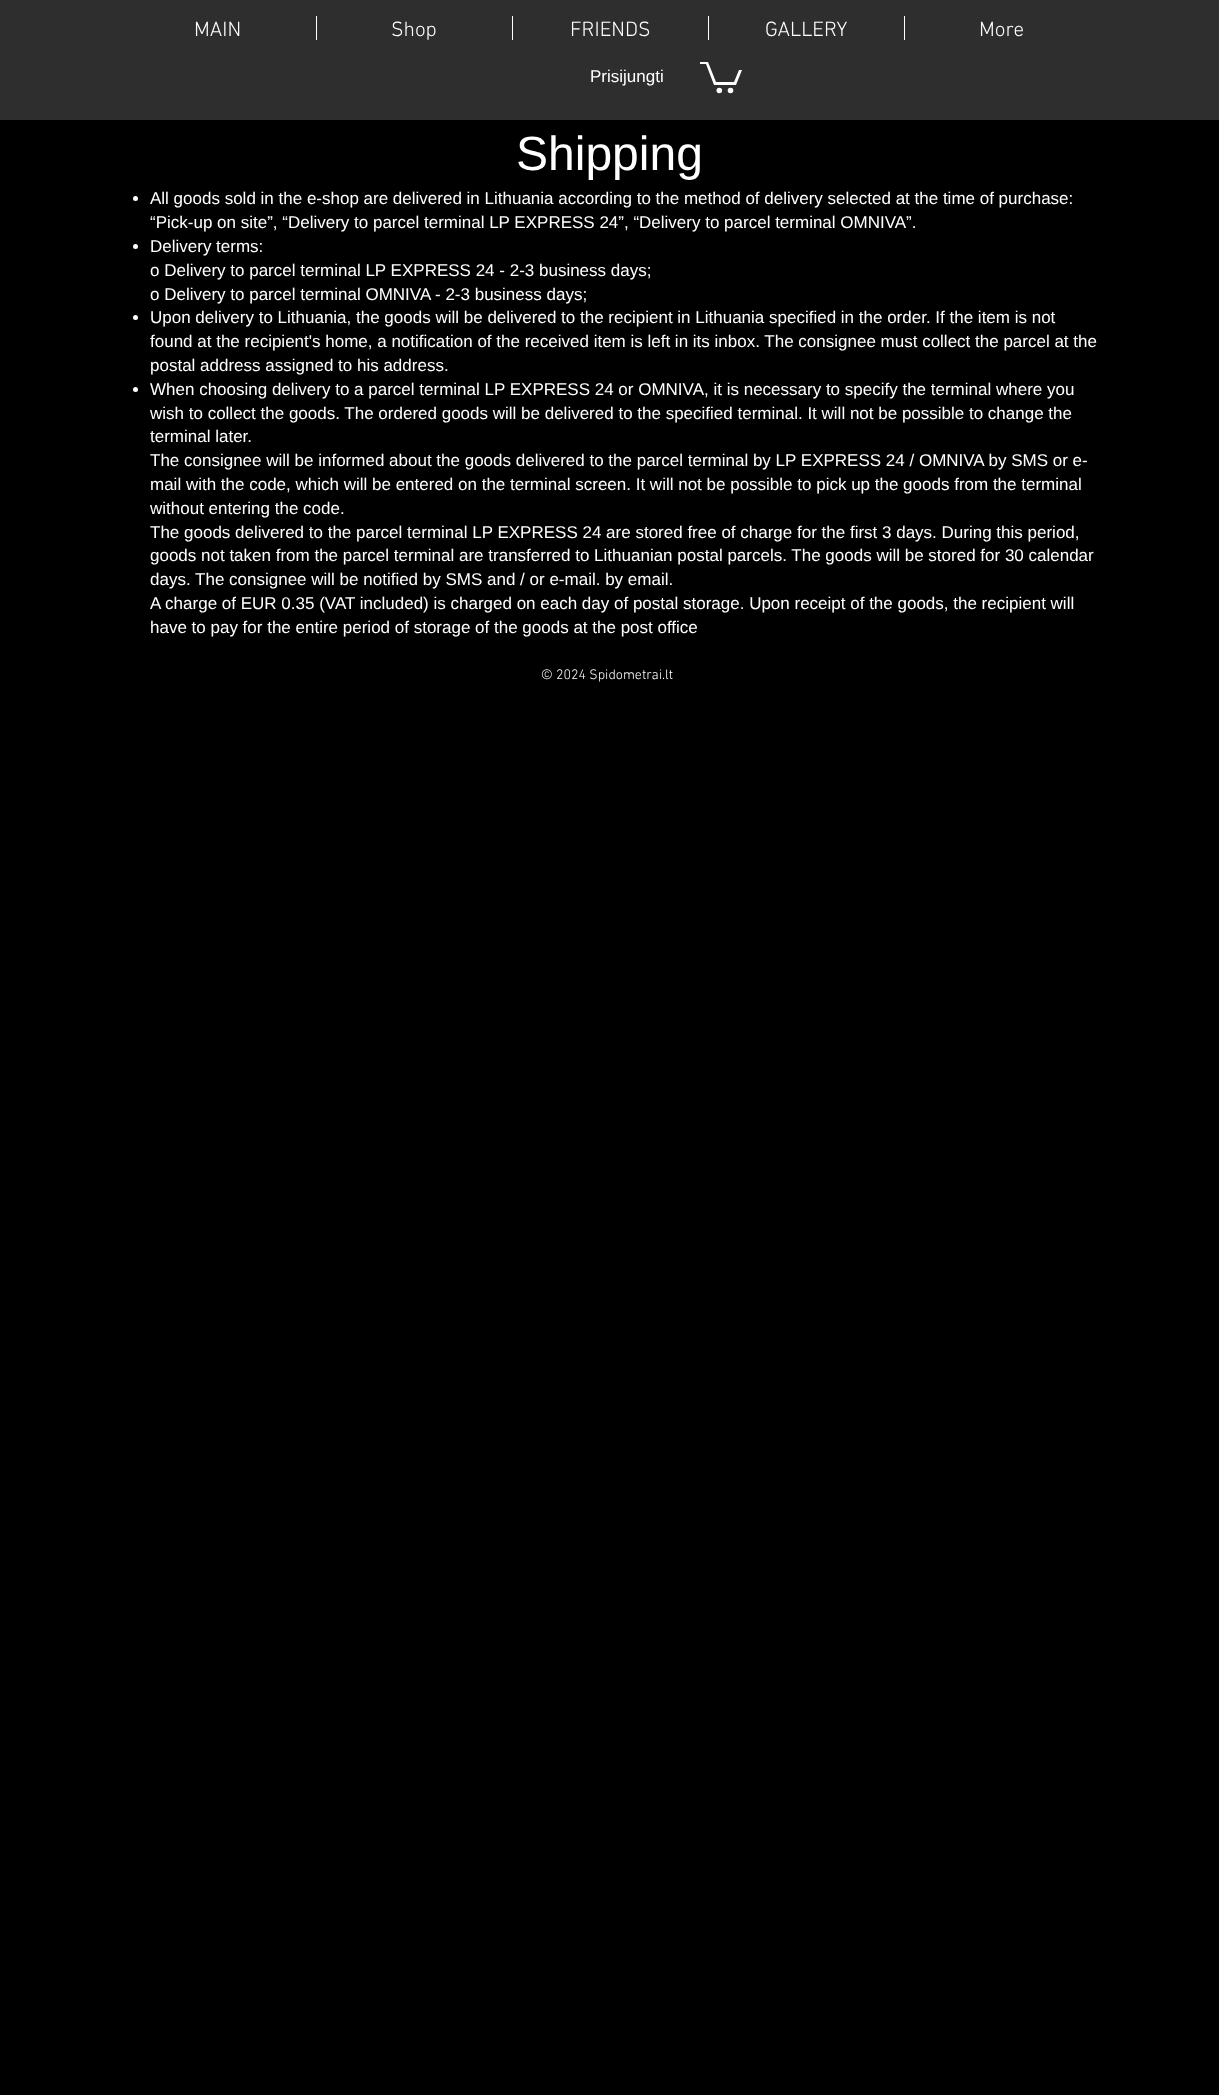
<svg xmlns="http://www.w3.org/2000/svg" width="1219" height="2095">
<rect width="100%" height="100%" fill="#000"/>
<rect width="1219" height="120" fill="#2f2e2e"/>
<text x="194" y="36" style="font-family:'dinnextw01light';font-size:21px;font-weight:300;fill:#fff">MAIN</text>
<rect x="316" y="16" width="1" height="24" fill="#fff"/>
<text x="391" y="36" style="font-family:'dinnextw01light';font-size:21px;font-weight:300;fill:#fff">Shop</text>
<rect x="512" y="16" width="1" height="24" fill="#fff"/>
<text x="570" y="36" style="font-family:'dinnextw01light';font-size:21px;font-weight:300;fill:#fff">FRIENDS</text>
<rect x="708" y="16" width="1" height="24" fill="#fff"/>
<text x="765" y="36" style="font-family:'dinnextw01light';font-size:21px;font-weight:300;fill:#fff">GALLERY</text>
<rect x="904" y="16" width="1" height="24" fill="#fff"/>
<text x="979" y="36" style="font-family:'dinnextw01light';font-size:21px;font-weight:300;fill:#fff">More</text>
<text x="590" y="82" style="font-family:Liberation Sans;font-size:17px;fill:#fff">Prisijungti</text>
<path d="M742 70l-6 15h-22l-8-21h-6v-2h8l8 20h18l5-12" fill="#fff"/>
<circle cx="730.5" cy="90.5" r="2.8" fill="#fff"/>
<circle cx="719.3" cy="90.5" r="2.8" fill="#fff"/>
<text x="516" y="170" style="font-family:Liberation Sans;font-size:48px;fill:#fff">Shipping</text>
<circle cx="135.5" cy="198.5" r="2.5" fill="#fff"/>
<text x="150" y="204" style="font-family:Liberation Sans;font-size:17px;fill:#fff">All goods sold in the e-shop are delivered in Lithuania according to the method of delivery selected at the time of purchase:</text>
<text x="150" y="228" style="font-family:Liberation Sans;font-size:17px;fill:#fff">“Pick-up on site”, “Delivery to parcel terminal LP EXPRESS 24”, “Delivery to parcel terminal OMNIVA”.</text>
<circle cx="135.5" cy="246.5" r="2.5" fill="#fff"/>
<text x="150" y="252" style="font-family:Liberation Sans;font-size:17px;fill:#fff">Delivery terms:</text>
<text x="150" y="276" style="font-family:Liberation Sans;font-size:17px;fill:#fff">o Delivery to parcel terminal LP EXPRESS 24 - 2-3 business days;</text>
<text x="150" y="300" style="font-family:Liberation Sans;font-size:17px;fill:#fff">o Delivery to parcel terminal OMNIVA - 2-3 business days;</text>
<circle cx="135.5" cy="317.5" r="2.5" fill="#fff"/>
<text x="150" y="323" style="font-family:Liberation Sans;font-size:17px;fill:#fff">Upon delivery to Lithuania, the goods will be delivered to the recipient in Lithuania specified in the order. If the item is not</text>
<text x="150" y="347" style="font-family:Liberation Sans;font-size:17px;fill:#fff">found at the recipient's home, a notification of the received item is left in its inbox. The consignee must collect the parcel at the</text>
<text x="150" y="371" style="font-family:Liberation Sans;font-size:17px;fill:#fff">postal address assigned to his address.</text>
<circle cx="135.5" cy="389.5" r="2.5" fill="#fff"/>
<text x="150" y="395" style="font-family:Liberation Sans;font-size:17px;fill:#fff">When choosing delivery to a parcel terminal LP EXPRESS 24 or OMNIVA, it is necessary to specify the terminal where you</text>
<text x="150" y="419" style="font-family:Liberation Sans;font-size:17px;fill:#fff">wish to collect the goods. The ordered goods will be delivered to the specified terminal. It will not be possible to change the</text>
<text x="150" y="442" style="font-family:Liberation Sans;font-size:17px;fill:#fff">terminal later.</text>
<text x="150" y="466" style="font-family:Liberation Sans;font-size:17px;fill:#fff">The consignee will be informed about the goods delivered to the parcel terminal by LP EXPRESS 24 / OMNIVA by SMS or e-</text>
<text x="150" y="490" style="font-family:Liberation Sans;font-size:17px;fill:#fff">mail with the code, which will be entered on the terminal screen. It will not be possible to pick up the goods from the terminal</text>
<text x="150" y="514" style="font-family:Liberation Sans;font-size:17px;fill:#fff">without entering the code.</text>
<text x="150" y="538" style="font-family:Liberation Sans;font-size:17px;fill:#fff">The goods delivered to the parcel terminal LP EXPRESS 24 are stored free of charge for the first 3 days. During this period,</text>
<text x="150" y="561" style="font-family:Liberation Sans;font-size:17px;fill:#fff">goods not taken from the parcel terminal are transferred to Lithuanian postal parcels. The goods will be stored for 30 calendar</text>
<text x="150" y="585" style="font-family:Liberation Sans;font-size:17px;fill:#fff">days. The consignee will be notified by SMS and / or e-mail. by email.</text>
<text x="150" y="609" style="font-family:Liberation Sans;font-size:17px;fill:#fff">A charge of EUR 0.35 (VAT included) is charged on each day of postal storage. Upon receipt of the goods, the recipient will</text>
<text x="150" y="633" style="font-family:Liberation Sans;font-size:17px;fill:#fff">have to pay for the entire period of storage of the goods at the post office</text>
<text x="541" y="679" style="font-family:'dinnextw01light';font-size:14px;font-weight:300;fill:#fff">© 2024 Spidometrai.lt</text>
</svg>
